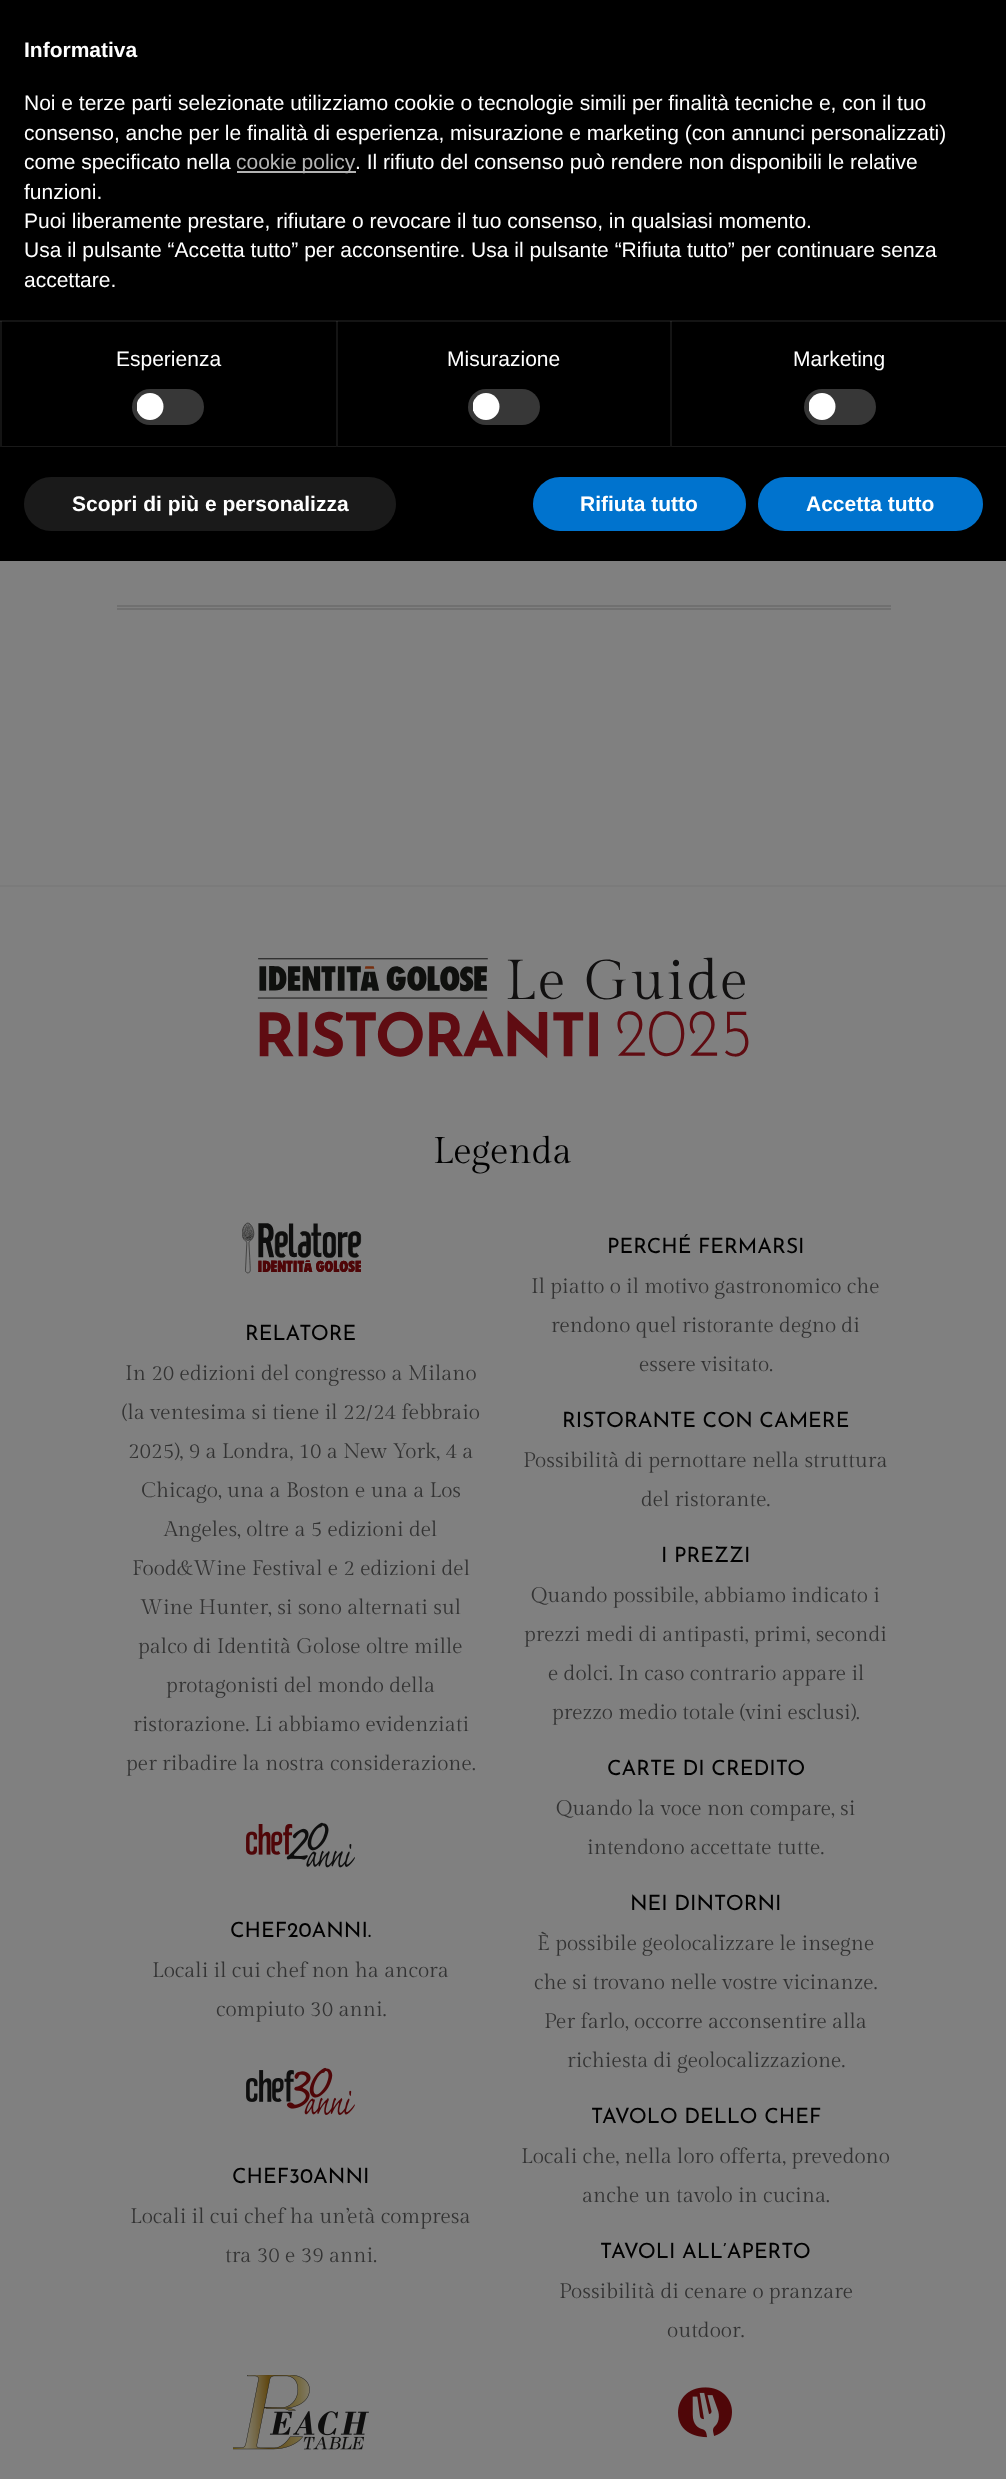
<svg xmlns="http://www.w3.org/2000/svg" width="1006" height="2479">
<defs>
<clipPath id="clip1"><rect x="137" y="393" width="27" height="27"/></clipPath>
<clipPath id="clip2"><rect x="473" y="393" width="27" height="27"/></clipPath>
<clipPath id="clip3"><rect x="809" y="393" width="27" height="27"/></clipPath>
</defs>
<rect width="100%" height="100%" fill="#808080"/>
<rect width="1006" height="561" fill="#000"/>
<text x="24" y="57" style="font-family:Liberation Sans;font-size:21px;font-weight:bold;fill:#fff">Informativa</text>
<text x="24" y="110" style="font-family:Liberation Sans;font-size:21px;fill:#fff">Noi e terze parti selezionate utilizziamo cookie o tecnologie simili per finalità tecniche e, con il tuo</text>
<text x="24" y="140" style="font-family:Liberation Sans;font-size:21px;fill:#fff">consenso, anche per le finalità di esperienza, misurazione e marketing (con annunci personalizzati)</text>
<text x="24" y="169" style="font-family:Liberation Sans;font-size:21px;fill:#fff">come specificato nella</text>
<rect x="237" y="171" width="119" height="2" fill="#b3b3b3"/>
<text x="236" y="169" word-spacing="-1" style="font-family:Liberation Sans;font-size:21px;fill:#b3b3b3">cookie policy</text>
<text x="355" y="169" style="font-family:Liberation Sans;font-size:21px;fill:#fff">. Il rifiuto del consenso può rendere non disponibili le relative</text>
<text x="24" y="199" style="font-family:Liberation Sans;font-size:21px;fill:#fff">funzioni.</text>
<text x="24" y="228" style="font-family:Liberation Sans;font-size:21px;fill:#fff">Puoi liberamente prestare, rifiutare o revocare il tuo consenso, in qualsiasi momento.</text>
<text x="24" y="257" style="font-family:Liberation Sans;font-size:21px;fill:#fff">Usa il pulsante “Accetta tutto” per acconsentire. Usa il pulsante “Rifiuta tutto” per continuare senza</text>
<text x="24" y="287" style="font-family:Liberation Sans;font-size:21px;fill:#fff">accettare.</text>
<rect y="320" width="1006" height="2" fill="#141414"/>
<path d="M336 447h-336l2-1h334z" fill="#191919"/>
<path d="M0 447v-126h2v125z" fill="#ffffff14"/>
<text x="116" y="366" style="font-family:Liberation Sans;font-size:21px;fill:#fff">Esperienza</text>
<rect x="132" y="389" width="72" height="36" rx="18" fill="#373737"/>
<g clip-path="url(#clip1)">
<circle cx="150" cy="406.5" r="13.5" fill="#fff"/>
</g>
<path d="M670 447h-334l2-1h332z" fill="#191919"/>
<path d="M336 447v-126h2v125z" fill="#ffffff14"/>
<text x="447" y="366" style="font-family:Liberation Sans;font-size:21px;fill:#fff">Misurazione</text>
<rect x="468" y="389" width="72" height="36" rx="18" fill="#373737"/>
<g clip-path="url(#clip2)">
<circle cx="486" cy="406.5" r="13.5" fill="#fff"/>
</g>
<path d="M1006 447h-336l2-1h334z" fill="#191919"/>
<path d="M670 447v-126h2v125z" fill="#ffffff14"/>
<text x="793" y="366" style="font-family:Liberation Sans;font-size:21px;fill:#fff">Marketing</text>
<rect x="804" y="389" width="72" height="36" rx="18" fill="#373737"/>
<g clip-path="url(#clip3)">
<circle cx="822" cy="406.5" r="13.5" fill="#fff"/>
</g>
<rect x="24" y="477" width="372" height="54" rx="27" fill="#1a1a1a"/>
<text x="72" y="511" style="font-family:Liberation Sans;font-size:21px;font-weight:bold;fill:#fff">Scopri di più e personalizza</text>
<rect x="533" y="477" width="213" height="54" rx="27" fill="#0073ce"/>
<text x="580" y="511" style="font-family:Liberation Sans;font-size:21px;font-weight:bold;fill:#fff">Rifiuta tutto</text>
<rect x="758" y="477" width="225" height="54" rx="27" fill="#0073ce"/>
<text x="806" y="511" style="font-family:Liberation Sans;font-size:21px;font-weight:bold;fill:#fff">Accetta tutto</text>
<rect x="117" y="605" width="774" height="2" fill="#707070"/>
<rect x="117" y="608" width="774" height="2" fill="#707070"/>
<rect y="885" width="1006" height="2" fill="#7b7b7b"/>
<image x="257" y="957" width="492" height="101" href="media/1.png"/>
<text x="433" y="1163" style="font-family:Gilda Display;font-size:37px;fill:#000">Legenda</text>
<image x="242" y="1222" width="120" height="52" href="media/2.png"/>
<text x="245" y="1340" style="font-family:Josefin Sans;font-size:21px;fill:#000">RELATORE</text>
<text x="125" y="1380" style="font-family:Gilda Display;font-size:21px;fill:#333">In 20 edizioni del congresso a Milano</text>
<text x="122" y="1419" style="font-family:Gilda Display;font-size:21px;fill:#333">(la ventesima si tiene il 22/24 febbraio</text>
<text x="128" y="1458" style="font-family:Gilda Display;font-size:21px;fill:#333">2025), 9 a Londra, 10 a New York, 4 a</text>
<text x="141" y="1497" style="font-family:Gilda Display;font-size:21px;fill:#333">Chicago, una a Boston e una a Los</text>
<text x="164" y="1536" style="font-family:Gilda Display;font-size:21px;fill:#333">Angeles, oltre a 5 edizioni del</text>
<text x="132" y="1575" style="font-family:Gilda Display;font-size:21px;fill:#333">Food&amp;Wine Festival e 2 edizioni del</text>
<text x="140" y="1614" style="font-family:Gilda Display;font-size:21px;fill:#333">Wine Hunter, si sono alternati sul</text>
<text x="138" y="1653" style="font-family:Gilda Display;font-size:21px;fill:#333">palco di Identità Golose oltre mille</text>
<text x="166" y="1692" style="font-family:Gilda Display;font-size:21px;fill:#333">protagonisti del mondo della</text>
<text x="133" y="1731" style="font-family:Gilda Display;font-size:21px;fill:#333">ristorazione. Li abbiamo evidenziati</text>
<text x="126" y="1770" style="font-family:Gilda Display;font-size:21px;fill:#333">per ribadire la nostra considerazione.</text>
<image x="246" y="1822" width="109" height="46" href="media/3.png"/>
<text x="230" y="1937" style="font-family:Josefin Sans;font-size:21px;fill:#000">CHEF20ANNI.</text>
<text x="152" y="1977" style="font-family:Gilda Display;font-size:21px;fill:#333">Locali il cui chef non ha ancora</text>
<text x="216" y="2016" style="font-family:Gilda Display;font-size:21px;fill:#333">compiuto 30 anni.</text>
<image x="246" y="2067" width="109" height="48" href="media/4.png"/>
<text x="232" y="2183" style="font-family:Josefin Sans;font-size:21px;fill:#000">CHEF30ANNI</text>
<text x="130" y="2223" style="font-family:Gilda Display;font-size:21px;fill:#333">Locali il cui chef ha un’età compresa</text>
<text x="225" y="2262" style="font-family:Gilda Display;font-size:21px;fill:#333">tra 30 e 39 anni.</text>
<text x="607" y="1253" style="font-family:Josefin Sans;font-size:21px;fill:#000">PERCHÉ FERMARSI</text>
<text x="531" y="1293" style="font-family:Gilda Display;font-size:21px;fill:#333">Il piatto o il motivo gastronomico che</text>
<text x="551" y="1332" style="font-family:Gilda Display;font-size:21px;fill:#333">rendono quel ristorante degno di</text>
<text x="639" y="1371" style="font-family:Gilda Display;font-size:21px;fill:#333">essere visitato.</text>
<text x="562" y="1427" style="font-family:Josefin Sans;font-size:21px;fill:#000">RISTORANTE CON CAMERE</text>
<text x="523" y="1467" style="font-family:Gilda Display;font-size:21px;fill:#333">Possibilità di pernottare nella struttura</text>
<text x="641" y="1506" style="font-family:Gilda Display;font-size:21px;fill:#333">del ristorante.</text>
<text x="661" y="1562" style="font-family:Josefin Sans;font-size:21px;fill:#000">I PREZZI</text>
<text x="531" y="1602" style="font-family:Gilda Display;font-size:21px;fill:#333">Quando possibile, abbiamo indicato i</text>
<text x="524" y="1641" style="font-family:Gilda Display;font-size:21px;fill:#333">prezzi medi di antipasti, primi, secondi</text>
<text x="548" y="1680" style="font-family:Gilda Display;font-size:21px;fill:#333">e dolci. In caso contrario appare il</text>
<text x="552" y="1719" style="font-family:Gilda Display;font-size:21px;fill:#333">prezzo medio totale (vini esclusi).</text>
<text x="607" y="1775" style="font-family:Josefin Sans;font-size:21px;fill:#000">CARTE DI CREDITO</text>
<text x="556" y="1815" style="font-family:Gilda Display;font-size:21px;fill:#333">Quando la voce non compare, si</text>
<text x="587" y="1854" style="font-family:Gilda Display;font-size:21px;fill:#333">intendono accettate tutte.</text>
<text x="630" y="1910" style="font-family:Josefin Sans;font-size:21px;fill:#000">NEI DINTORNI</text>
<text x="537" y="1950" style="font-family:Gilda Display;font-size:21px;fill:#333">È possibile geolocalizzare le insegne</text>
<text x="534" y="1989" style="font-family:Gilda Display;font-size:21px;fill:#333">che si trovano nelle vostre vicinanze.</text>
<text x="544" y="2028" style="font-family:Gilda Display;font-size:21px;fill:#333">Per farlo, occorre acconsentire alla</text>
<text x="567" y="2067" style="font-family:Gilda Display;font-size:21px;fill:#333">richiesta di geolocalizzazione.</text>
<text x="591" y="2123" style="font-family:Josefin Sans;font-size:21px;fill:#000">TAVOLO DELLO CHEF</text>
<text x="521" y="2163" style="font-family:Gilda Display;font-size:21px;fill:#333">Locali che, nella loro offerta, prevedono</text>
<text x="582" y="2202" style="font-family:Gilda Display;font-size:21px;fill:#333">anche un tavolo in cucina.</text>
<text x="600" y="2258" style="font-family:Josefin Sans;font-size:21px;fill:#000">TAVOLI ALL’APERTO</text>
<text x="559" y="2298" style="font-family:Gilda Display;font-size:21px;fill:#333">Possibilità di cenare o pranzare</text>
<text x="667" y="2337" style="font-family:Gilda Display;font-size:21px;fill:#333">outdoor.</text>
<image x="233" y="2375" width="136" height="75" href="media/5.png"/>
<image x="678" y="2387" width="54" height="51" href="media/6.png"/>
</svg>
